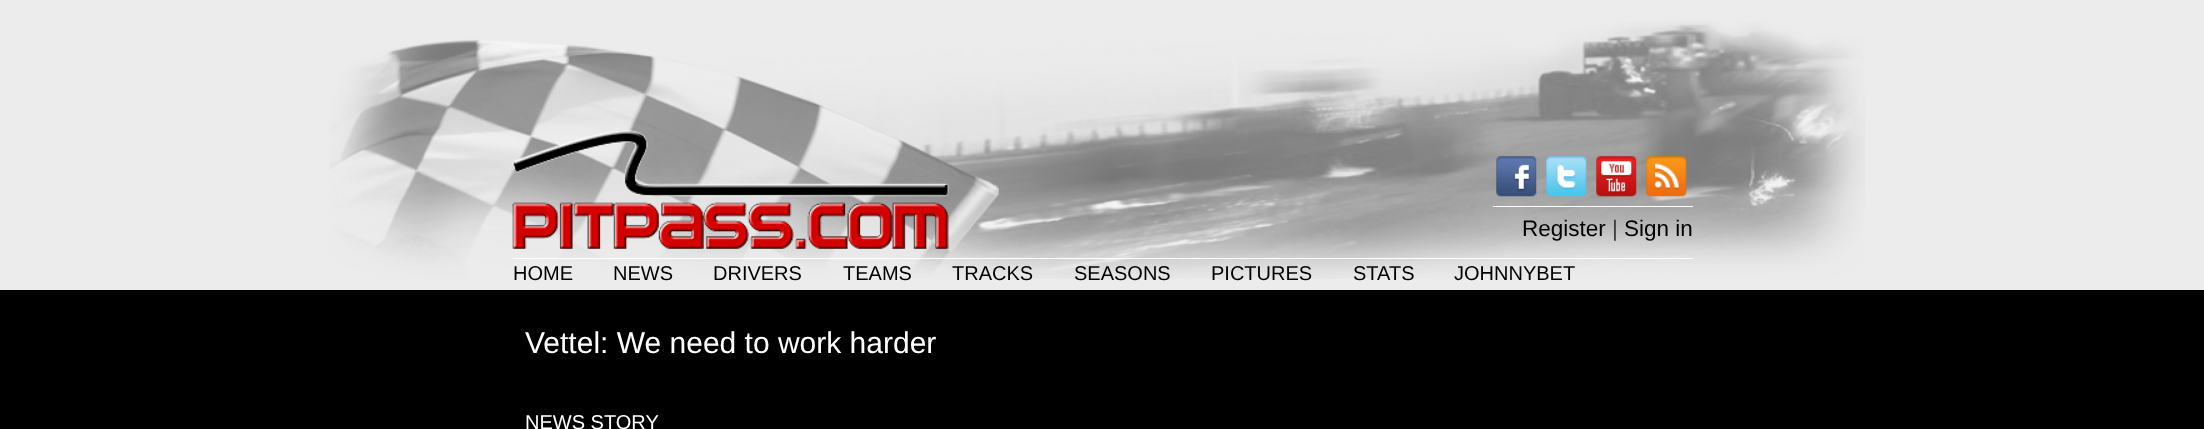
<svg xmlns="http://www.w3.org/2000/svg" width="2204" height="429">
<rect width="100%" height="100%" fill="#ececec"/>
<image x="329" y="21" width="1536" height="258" href="media/1.png"/>
<image x="512" y="130" width="437" height="119" href="media/2.png"/>
<image x="1496" y="156" width="41" height="41" href="media/3.png"/>
<image x="1546" y="156" width="41" height="41" href="media/4.png"/>
<image x="1596" y="156" width="41" height="41" href="media/5.png"/>
<image x="1646" y="156" width="41" height="41" href="media/6.png"/>
<rect x="1493" y="206" width="200" height="1" fill="#fff"/>
<text x="1522" y="236" style="font-family:Liberation Sans;font-size:22.5px;fill:#000">Register</text>
<text x="1612" y="236" style="font-family:Liberation Sans;font-size:22.5px;fill:#3a3a3a">|</text>
<text x="1624" y="236" style="font-family:Liberation Sans;font-size:22.5px;fill:#000">Sign in</text>
<rect x="513" y="258" width="1180" height="1" fill="#fff"/>
<text x="513" y="280" style="font-family:Liberation Sans;font-size:20px;fill:#000">HOME</text>
<text x="613" y="280" style="font-family:Liberation Sans;font-size:20px;fill:#000">NEWS</text>
<text x="713" y="280" style="font-family:Liberation Sans;font-size:20px;fill:#000">DRIVERS</text>
<text x="843" y="280" style="font-family:Liberation Sans;font-size:20px;fill:#000">TEAMS</text>
<text x="952" y="280" style="font-family:Liberation Sans;font-size:20px;fill:#000">TRACKS</text>
<text x="1074" y="280" style="font-family:Liberation Sans;font-size:20px;fill:#000">SEASONS</text>
<text x="1211" y="280" style="font-family:Liberation Sans;font-size:20px;fill:#000">PICTURES</text>
<text x="1353" y="280" style="font-family:Liberation Sans;font-size:20px;fill:#000">STATS</text>
<text x="1454" y="280" style="font-family:Liberation Sans;font-size:20px;fill:#000">JOHNNYBET</text>
<rect y="290" width="2204" height="139" fill="#000"/>
<text x="525" y="353" style="font-family:Liberation Sans;font-size:30px;fill:#fff">Vettel: We need to work harder</text>
<text x="525" y="429" style="font-family:Liberation Sans;font-size:20px;fill:#fff">NEWS STORY</text>
</svg>
